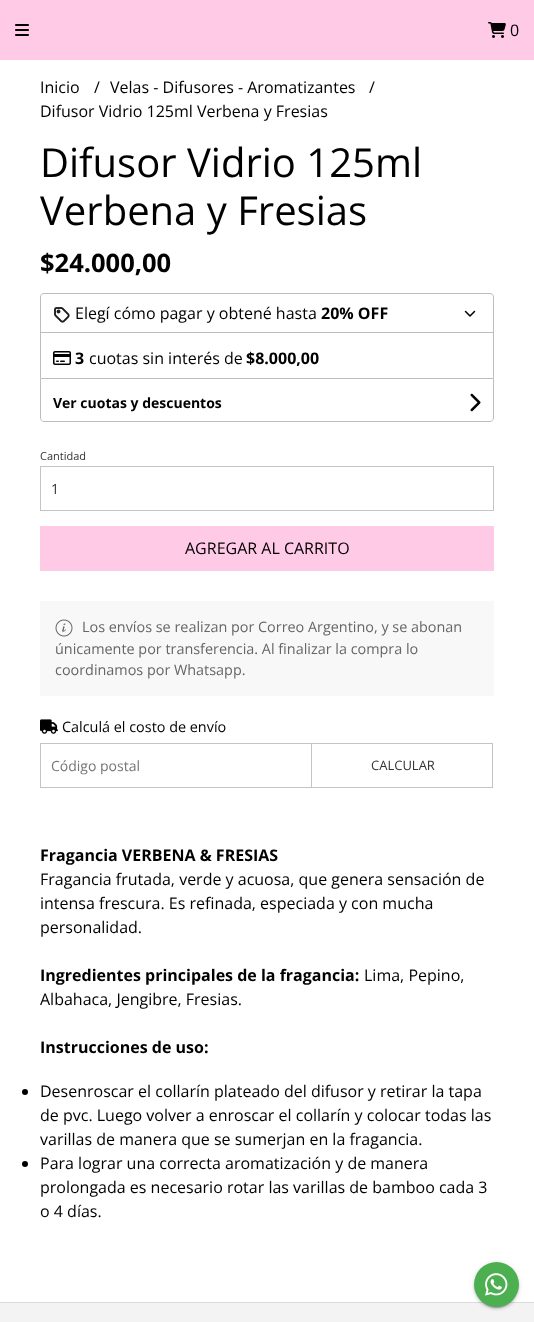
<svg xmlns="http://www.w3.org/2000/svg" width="534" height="1322">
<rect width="100%" height="100%" fill="#fff"/>
<rect width="534" height="60" fill="#ffcae6"/>
<image x="15" y="24" width="14" height="12" href="media/1.png"/>
<image x="488" y="22" width="18" height="16" href="media/2.png"/>
<text x="510" y="36" style="font-family:Open Sans;font-size:16px;fill:#000">0</text>
<text x="40" y="93" style="font-family:Open Sans;font-size:16px;fill:#000">Inicio</text>
<text x="94" y="93" style="font-family:Open Sans;font-size:16px;fill:#000">/</text>
<text x="110" y="93" style="font-family:Open Sans;font-size:16px;fill:#000">Velas - Difusores - Aromatizantes</text>
<text x="369" y="93" style="font-family:Open Sans;font-size:16px;fill:#000">/</text>
<text x="40" y="117" style="font-family:Open Sans;font-size:16px;fill:#000">Difusor Vidrio 125ml Verbena y Fresias</text>
<text x="40" y="177" style="font-family:Open Sans;font-size:40px;fill:#000">Difusor Vidrio 125ml</text>
<text x="40" y="225" style="font-family:Open Sans;font-size:40px;fill:#000">Verbena y Fresias</text>
<text x="40" y="272" style="font-family:Open Sans;font-size:25.5px;font-weight:bold;fill:#000">$24.000,00</text>
<path d="M44 293h446c2 0 4 2 4 4v35h-454v-35c0-2 2-4 4-4zm0 1h446c2 0 3 1 3 3v35h-452v-35c0-2 1-3 3-3z" fill="#bdbdbd" fill-rule="evenodd"/>
<image x="54" y="307" width="16" height="16" href="media/3.png"/>
<text x="75" y="319" style="font-family:Open Sans;font-size:16px;fill:#000">Elegí cómo pagar y obtené hasta</text>
<text x="321" y="319" style="font-family:Open Sans;font-size:16px;font-weight:bold;fill:#000">20% OFF</text>
<image x="464" y="310" width="12" height="7" href="media/4.png"/>
<rect x="40" y="332" width="454" height="1" fill="#bdbdbd"/>
<rect x="493" y="332" width="1" height="46" fill="#bdbdbd"/>
<rect x="40" y="332" width="1" height="46" fill="#bdbdbd"/>
<image x="53" y="351" width="18" height="14" href="media/5.png"/>
<text x="75" y="364" style="font-family:Open Sans;font-size:16px;font-weight:bold;fill:#000">3</text>
<text x="89" y="364" style="font-family:Open Sans;font-size:16px;fill:#000">cuotas sin interés de</text>
<text x="246" y="364" style="font-family:Open Sans;font-size:16px;font-weight:bold;fill:#000">$8.000,00</text>
<path d="M40.5 378.5h453v39.5c0 2-1.5 3.5-3.5 3.5h-446c-2 0-3.5-1.5-3.5-3.5z" fill="none" stroke="#bdbdbd"/>
<text x="53" y="408" style="font-family:Open Sans;font-size:14px;font-weight:bold;fill:#000">Ver cuotas y descuentos</text>
<image x="470" y="393" width="11" height="19" href="media/6.png"/>
<text x="40" y="460" style="font-family:Open Sans;font-size:11px;fill:#333">Cantidad</text>
<rect x="40.5" y="466.5" width="453" height="44" fill="none" stroke="#c4c4c4"/>
<text x="51" y="494" style="font-family:Open Sans;font-size:14px;fill:#333">1</text>
<rect x="40" y="526" width="454" height="45" fill="#ffcae6"/>
<text x="185" y="554" style="font-family:Open Sans;font-size:16px;fill:#000">AGREGAR AL CARRITO</text>
<rect x="40" y="601" width="454" height="95" fill="#f8f8f8"/>
<image x="55" y="619" width="18" height="18" href="media/7.png"/>
<text x="82" y="632" style="font-family:Open Sans;font-size:14.4px;fill:#666">Los envíos se realizan por Correo Argentino, y se abonan</text>
<text x="55" y="654" style="font-family:Open Sans;font-size:14.4px;fill:#666">únicamente por transferencia. Al finalizar la compra lo</text>
<text x="55" y="675" style="font-family:Open Sans;font-size:14.4px;fill:#666">coordinamos por Whatsapp.</text>
<image x="40" y="719" width="18" height="15" href="media/8.png"/>
<text x="62" y="732" style="font-family:Open Sans;font-size:14.4px;fill:#000">Calculá el costo de envío</text>
<rect x="40.5" y="743.5" width="271" height="44" fill="none" stroke="#c4c4c4"/>
<text x="51" y="771" style="font-family:Open Sans;font-size:14px;fill:#757575">Código postal</text>
<rect x="311.5" y="743.5" width="181" height="44" fill="none" stroke="#c4c4c4"/>
<text x="371" y="770" style="font-family:Open Sans;font-size:13px;fill:#333">CALCULAR</text>
<text x="40" y="861" style="font-family:Open Sans;font-size:16px;font-weight:bold;fill:#000">Fragancia VERBENA &amp; FRESIAS</text>
<text x="40" y="885" style="font-family:Open Sans;font-size:16px;fill:#000">Fragancia frutada, verde y acuosa, que genera sensación de</text>
<text x="40" y="909" style="font-family:Open Sans;font-size:16px;fill:#000">intensa frescura. Es refinada, especiada y con mucha</text>
<text x="40" y="933" style="font-family:Open Sans;font-size:16px;fill:#000">personalidad.</text>
<text x="40" y="981" style="font-family:Open Sans;font-size:16px;font-weight:bold;fill:#000">Ingredientes principales de la fragancia:</text>
<text x="364" y="981" style="font-family:Open Sans;font-size:16px;fill:#000">Lima, Pepino,</text>
<text x="40" y="1005" style="font-family:Open Sans;font-size:16px;fill:#000">Albahaca, Jengibre, Fresias.</text>
<text x="40" y="1053" style="font-family:Open Sans;font-size:16px;font-weight:bold;fill:#000">Instrucciones de uso:</text>
<circle cx="25" cy="1092" r="3" fill="#000"/>
<text x="40" y="1097" style="font-family:Open Sans;font-size:16px;fill:#000">Desenroscar el collarín plateado del difusor y retirar la tapa</text>
<text x="40" y="1121" style="font-family:Open Sans;font-size:16px;fill:#000">de pvc. Luego volver a enroscar el collarín y colocar todas las</text>
<text x="40" y="1145" style="font-family:Open Sans;font-size:16px;fill:#000">varillas de manera que se sumerjan en la fragancia.</text>
<circle cx="25" cy="1164" r="3" fill="#000"/>
<text x="40" y="1169" style="font-family:Open Sans;font-size:16px;fill:#000">Para lograr una correcta aromatización y de manera</text>
<text x="40" y="1193" style="font-family:Open Sans;font-size:16px;fill:#000">prolongada es necesario rotar las varillas de bamboo cada 3</text>
<text x="40" y="1217" style="font-family:Open Sans;font-size:16px;fill:#000">o 4 días.</text>
<rect y="1303" width="534" height="19" fill="#f3f3f3"/>
<rect y="1302" width="534" height="1" fill="#dbdbdb"/>
<rect x="476" y="1267" width="41" height="41" rx="20.5" fill="#00000033" filter="blur(0.5px)"/>
<rect x="474" y="1263" width="45" height="45" rx="22.5" fill="#0000001f" filter="blur(2.5px)"/>
<rect x="474" y="1264" width="45" height="45" rx="22.5" fill="#00000024" filter="blur(1px)"/>
<circle cx="496.5" cy="1284.5" r="22.5" fill="#4caf50"/>
<image x="485" y="1273" width="23" height="23" href="media/9.png"/>
</svg>
